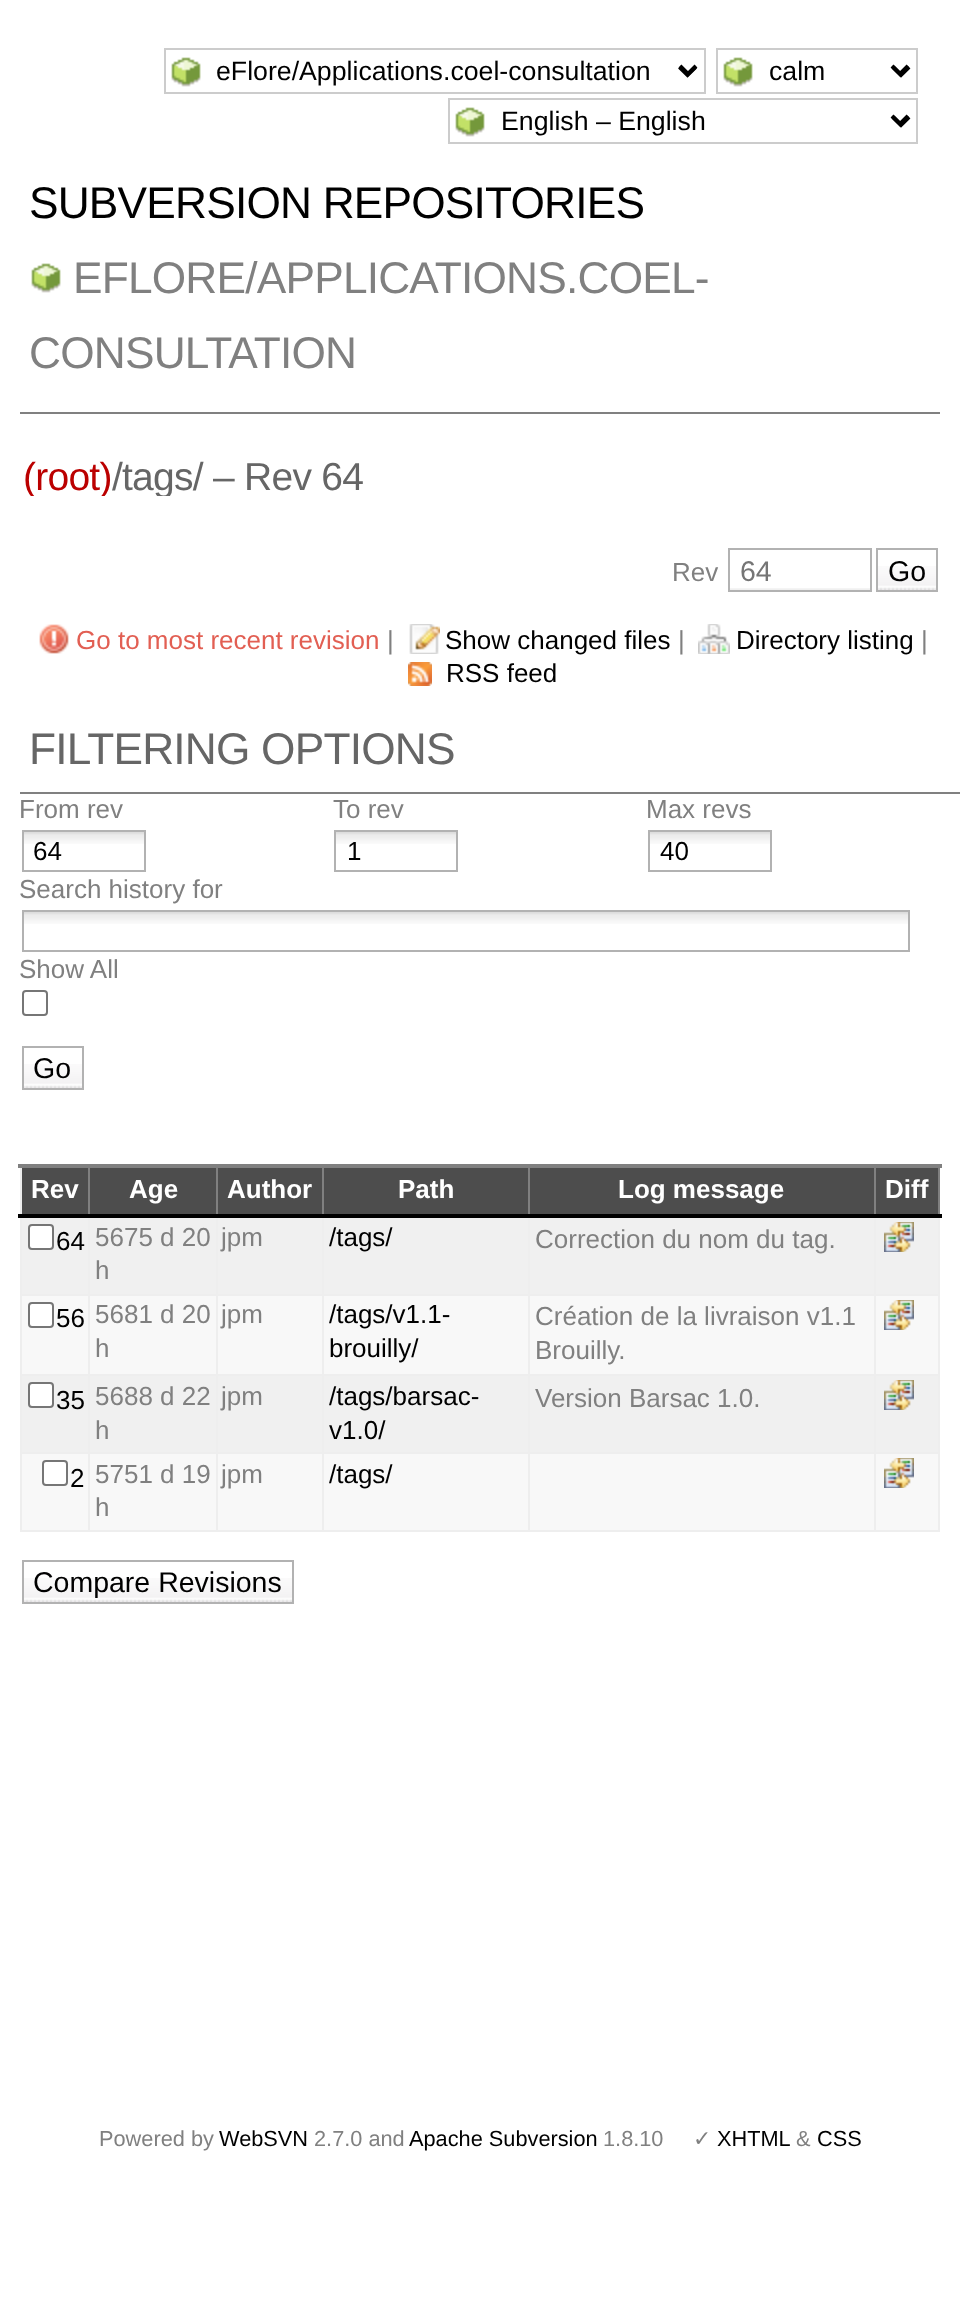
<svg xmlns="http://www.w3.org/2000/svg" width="960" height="2321">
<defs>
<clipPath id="clip1"><rect x="20" y="458" width="920" height="38"/></clipPath>
</defs>
<rect width="100%" height="100%" fill="#fff"/>
<image x="171" y="57" width="527" height="30" href="media/1.png"/>
<rect x="165" y="49" width="540" height="44" fill="none" stroke="#ccc" stroke-width="2"/>
<path d="M679.5 67l8 8l8-8" fill="none" stroke="#000" stroke-width="4"/>
<text x="216" y="80" style="font-family:Liberation Sans;font-size:26.7px;fill:#000">eFlore/Applications.coel-consultation</text>
<image x="723" y="57" width="187" height="30" href="media/2.png"/>
<rect x="717" y="49" width="200" height="44" fill="none" stroke="#ccc" stroke-width="2"/>
<path d="M893 67l8 8l8-8" fill="none" stroke="#000" stroke-width="4"/>
<text x="769" y="80" style="font-family:Liberation Sans;font-size:26.7px;fill:#000">calm</text>
<image x="455" y="107" width="455" height="30" href="media/3.png"/>
<rect x="449" y="99" width="468" height="44" fill="none" stroke="#ccc" stroke-width="2"/>
<path d="M893 117l8 8l8-8" fill="none" stroke="#000" stroke-width="4"/>
<text x="501" y="130" style="font-family:Liberation Sans;font-size:26.7px;fill:#000">English – English</text>
<rect x="20" y="412" width="920" height="2" fill="#808080"/>
<text x="29" y="218" style="font-family:Liberation Sans;font-size:44.25px;letter-spacing:-0.8px;fill:#000">SUBVERSION REPOSITORIES</text>
<image x="31" y="263" width="30" height="30" href="media/4.png"/>
<text x="73" y="293" style="font-family:Liberation Sans;font-size:44.25px;letter-spacing:-0.8px;fill:#808080">EFLORE/APPLICATIONS.COEL-</text>
<text x="29" y="368" style="font-family:Liberation Sans;font-size:44.25px;letter-spacing:-0.8px;fill:#808080">CONSULTATION</text>
<g clip-path="url(#clip1)">
<text x="23" y="490" style="font-family:Liberation Sans;font-size:39px;letter-spacing:-0.75px;fill:#b00">(root)</text>
</g>
<text x="112" y="490" style="font-family:Liberation Sans;font-size:39px;letter-spacing:-0.75px;fill:#666">/</text>
<g clip-path="url(#clip1)">
<text x="122" y="490" style="font-family:Liberation Sans;font-size:39px;letter-spacing:-0.75px;fill:#666">tags/</text>
</g>
<text x="213" y="490" style="font-family:Liberation Sans;font-size:39px;letter-spacing:-0.75px;fill:#666">– Rev 64</text>
<text x="672" y="581" style="font-family:Liberation Sans;font-size:26px;fill:#808080">Rev</text>
<image x="730" y="588" width="140" height="2" href="media/5.png"/>
<rect x="729" y="549" width="142" height="42" fill="none" stroke="#b2b2b2" stroke-width="2"/>
<text x="740" y="581" style="font-family:Liberation Sans;font-size:28.5px;fill:#757575">64</text>
<image x="878" y="566" width="58" height="24" href="media/6.png"/>
<rect x="877" y="549" width="60" height="42" fill="none" stroke="#b2b2b2" stroke-width="2"/>
<text x="888" y="581" style="font-family:Liberation Sans;font-size:28.5px;fill:#000">Go</text>
<image x="39" y="624" width="30" height="30" href="media/7.png"/>
<text x="76" y="649" style="font-family:Liberation Sans;font-size:26px;fill:#e25f53">Go to most recent revision</text>
<text x="387" y="649" style="font-family:Liberation Sans;font-size:26px;fill:#808080">|</text>
<image x="409" y="624" width="31" height="30" href="media/8.png"/>
<text x="445" y="649" style="font-family:Liberation Sans;font-size:26px;fill:#000">Show changed files</text>
<text x="678" y="649" style="font-family:Liberation Sans;font-size:26px;fill:#808080">|</text>
<image x="698" y="624" width="32" height="30" href="media/9.png"/>
<text x="736" y="649" style="font-family:Liberation Sans;font-size:26px;fill:#000">Directory listing</text>
<text x="921" y="649" style="font-family:Liberation Sans;font-size:26px;fill:#808080">|</text>
<image x="408" y="662" width="24" height="24" href="media/10.png"/>
<text x="446" y="682" style="font-family:Liberation Sans;font-size:26px;fill:#000">RSS feed</text>
<rect x="20" y="792" width="940" height="2" fill="#808080"/>
<text x="29" y="764" style="font-family:Liberation Sans;font-size:44.25px;letter-spacing:-0.8px;fill:#666">FILTERING OPTIONS</text>
<text x="19" y="818" style="font-family:Liberation Sans;font-size:26px;fill:#808080">From rev</text>
<text x="333" y="818" style="font-family:Liberation Sans;font-size:26px;fill:#808080">To rev</text>
<text x="646" y="818" style="font-family:Liberation Sans;font-size:26px;fill:#808080">Max revs</text>
<image x="24" y="832" width="120" height="12" href="media/11.png"/>
<rect x="23" y="831" width="122" height="40" fill="none" stroke="#b2b2b2" stroke-width="2"/>
<text x="33" y="860" style="font-family:Liberation Sans;font-size:26px;fill:#000">64</text>
<image x="336" y="832" width="120" height="12" href="media/11.png"/>
<rect x="335" y="831" width="122" height="40" fill="none" stroke="#b2b2b2" stroke-width="2"/>
<text x="347" y="860" style="font-family:Liberation Sans;font-size:26px;fill:#000">1</text>
<image x="650" y="832" width="120" height="12" href="media/11.png"/>
<rect x="649" y="831" width="122" height="40" fill="none" stroke="#b2b2b2" stroke-width="2"/>
<text x="660" y="860" style="font-family:Liberation Sans;font-size:26px;fill:#000">40</text>
<text x="19" y="898" style="font-family:Liberation Sans;font-size:26px;fill:#808080">Search history for</text>
<image x="24" y="912" width="884" height="12" href="media/12.png"/>
<rect x="23" y="911" width="886" height="40" fill="none" stroke="#b2b2b2" stroke-width="2"/>
<text x="19" y="978" style="font-family:Liberation Sans;font-size:26px;fill:#808080">Show All</text>
<rect x="23" y="991" width="24" height="24" rx="3" fill="none" stroke="#767676" stroke-width="2"/>
<image x="24" y="1064" width="58" height="24" href="media/6.png"/>
<rect x="23" y="1047" width="60" height="42" fill="none" stroke="#b2b2b2" stroke-width="2"/>
<text x="33" y="1078" style="font-family:Liberation Sans;font-size:28.5px;fill:#000">Go</text>
<rect x="22" y="1168" width="916" height="46" fill="#4d4d4d"/>
<rect x="874" y="1294" width="66" height="2" fill="#eee"/>
<rect x="874" y="1374" width="66" height="2" fill="#eee"/>
<rect x="874" y="1452" width="66" height="2" fill="#eee"/>
<rect x="938" y="1452" width="2" height="80" fill="#eee"/>
<rect x="874" y="1530" width="66" height="2" fill="#eee"/>
<rect x="874" y="1452" width="2" height="80" fill="#eee"/>
<rect x="528" y="1452" width="348" height="2" fill="#eee"/>
<rect x="874" y="1374" width="2" height="80" fill="#eee"/>
<rect x="528" y="1374" width="348" height="2" fill="#eee"/>
<rect x="874" y="1294" width="2" height="82" fill="#eee"/>
<rect x="528" y="1294" width="348" height="2" fill="#eee"/>
<rect x="528" y="1530" width="348" height="2" fill="#eee"/>
<rect x="528" y="1452" width="2" height="80" fill="#eee"/>
<rect x="322" y="1452" width="208" height="2" fill="#eee"/>
<rect x="528" y="1374" width="2" height="80" fill="#eee"/>
<rect x="322" y="1374" width="208" height="2" fill="#eee"/>
<rect x="528" y="1294" width="2" height="82" fill="#eee"/>
<rect x="322" y="1294" width="208" height="2" fill="#eee"/>
<rect x="322" y="1530" width="208" height="2" fill="#eee"/>
<rect x="322" y="1452" width="2" height="80" fill="#eee"/>
<rect x="216" y="1452" width="108" height="2" fill="#eee"/>
<rect x="322" y="1374" width="2" height="80" fill="#eee"/>
<rect x="216" y="1374" width="108" height="2" fill="#eee"/>
<rect x="322" y="1294" width="2" height="82" fill="#eee"/>
<rect x="216" y="1294" width="108" height="2" fill="#eee"/>
<rect x="216" y="1530" width="108" height="2" fill="#eee"/>
<rect x="216" y="1452" width="2" height="80" fill="#eee"/>
<rect x="88" y="1452" width="130" height="2" fill="#eee"/>
<rect x="216" y="1374" width="2" height="80" fill="#eee"/>
<rect x="88" y="1374" width="130" height="2" fill="#eee"/>
<rect x="216" y="1294" width="2" height="82" fill="#eee"/>
<rect x="88" y="1294" width="130" height="2" fill="#eee"/>
<rect x="88" y="1530" width="130" height="2" fill="#eee"/>
<rect x="88" y="1452" width="2" height="80" fill="#eee"/>
<rect x="20" y="1452" width="70" height="2" fill="#eee"/>
<rect x="88" y="1374" width="2" height="80" fill="#eee"/>
<rect x="20" y="1374" width="70" height="2" fill="#eee"/>
<rect x="88" y="1294" width="2" height="82" fill="#eee"/>
<rect x="20" y="1294" width="70" height="2" fill="#eee"/>
<rect x="88" y="1214" width="2" height="82" fill="#eee"/>
<rect x="88" y="1164" width="2" height="52" fill="#808080"/>
<text x="31" y="1198" style="font-family:Liberation Sans;font-size:26px;font-weight:bold;fill:#fff">Rev</text>
<rect x="216" y="1214" width="2" height="82" fill="#eee"/>
<rect x="216" y="1164" width="2" height="52" fill="#808080"/>
<text x="129" y="1198" style="font-family:Liberation Sans;font-size:26px;font-weight:bold;fill:#fff">Age</text>
<rect x="322" y="1214" width="2" height="82" fill="#eee"/>
<rect x="322" y="1164" width="2" height="52" fill="#808080"/>
<text x="227" y="1198" style="font-family:Liberation Sans;font-size:26px;font-weight:bold;fill:#fff">Author</text>
<rect x="528" y="1214" width="2" height="82" fill="#eee"/>
<rect x="528" y="1164" width="2" height="52" fill="#808080"/>
<text x="398" y="1198" style="font-family:Liberation Sans;font-size:26px;font-weight:bold;fill:#fff">Path</text>
<rect x="874" y="1214" width="2" height="82" fill="#eee"/>
<rect x="874" y="1164" width="2" height="52" fill="#808080"/>
<text x="618" y="1198" style="font-family:Liberation Sans;font-size:26px;font-weight:bold;fill:#fff">Log message</text>
<rect x="938" y="1374" width="2" height="80" fill="#eee"/>
<rect x="938" y="1214" width="2" height="162" fill="#eee"/>
<rect x="938" y="1164" width="2" height="52" fill="#808080"/>
<rect x="20" y="1530" width="70" height="2" fill="#eee"/>
<rect x="20" y="1452" width="2" height="80" fill="#eee"/>
<rect x="20" y="1374" width="2" height="80" fill="#eee"/>
<rect x="20" y="1164" width="2" height="212" fill="#eee"/>
<rect x="18" y="1164" width="924" height="4" fill="#808080"/>
<rect x="18" y="1214" width="924" height="4" fill="#000"/>
<text x="885" y="1198" style="font-family:Liberation Sans;font-size:26px;font-weight:bold;fill:#fff">Diff</text>
<rect x="22" y="1218" width="66" height="76" fill="#f0f0f0"/>
<rect x="29" y="1225" width="24" height="24" rx="3" fill="#fff" stroke="#767676" stroke-width="2"/>
<text x="56" y="1250" style="font-family:Liberation Sans;font-size:26px;fill:#000">64</text>
<rect x="90" y="1218" width="126" height="76" fill="#f0f0f0"/>
<text x="95" y="1246" style="font-family:Liberation Sans;font-size:26px;fill:#808080">5675 d 20</text>
<text x="95" y="1279" style="font-family:Liberation Sans;font-size:26px;fill:#808080">h</text>
<rect x="218" y="1218" width="104" height="76" fill="#f0f0f0"/>
<text x="221" y="1246" style="font-family:Liberation Sans;font-size:26px;fill:#808080">jpm</text>
<rect x="324" y="1218" width="204" height="76" fill="#f0f0f0"/>
<text x="329" y="1246" style="font-family:Liberation Sans;font-size:26px;fill:#000">/tags/</text>
<rect x="530" y="1218" width="344" height="76" fill="#f0f0f0"/>
<text x="535" y="1248" style="font-family:Liberation Sans;font-size:26px;fill:#808080">Correction du nom du tag.</text>
<rect x="876" y="1218" width="62" height="76" fill="#f0f0f0"/>
<image x="884" y="1222" width="30" height="30" href="media/13.png"/>
<rect x="22" y="1296" width="66" height="78" fill="#f8f8f8"/>
<rect x="29" y="1303" width="24" height="24" rx="3" fill="#fff" stroke="#767676" stroke-width="2"/>
<text x="56" y="1327" style="font-family:Liberation Sans;font-size:26px;fill:#000">56</text>
<rect x="90" y="1296" width="126" height="78" fill="#f8f8f8"/>
<text x="95" y="1323" style="font-family:Liberation Sans;font-size:26px;fill:#808080">5681 d 20</text>
<text x="95" y="1357" style="font-family:Liberation Sans;font-size:26px;fill:#808080">h</text>
<rect x="218" y="1296" width="104" height="78" fill="#f8f8f8"/>
<text x="221" y="1323" style="font-family:Liberation Sans;font-size:26px;fill:#808080">jpm</text>
<rect x="324" y="1296" width="204" height="78" fill="#f8f8f8"/>
<text x="329" y="1323" style="font-family:Liberation Sans;font-size:26px;fill:#000">/tags/v1.1-</text>
<text x="329" y="1357" style="font-family:Liberation Sans;font-size:26px;fill:#000">brouilly/</text>
<rect x="530" y="1296" width="344" height="78" fill="#f8f8f8"/>
<text x="535" y="1325" style="font-family:Liberation Sans;font-size:26px;fill:#808080">Création de la livraison v1.1</text>
<text x="535" y="1359" style="font-family:Liberation Sans;font-size:26px;fill:#808080">Brouilly.</text>
<rect x="876" y="1296" width="62" height="78" fill="#f8f8f8"/>
<image x="884" y="1300" width="30" height="30" href="media/14.png"/>
<rect x="22" y="1376" width="66" height="76" fill="#f0f0f0"/>
<rect x="29" y="1383" width="24" height="24" rx="3" fill="#fff" stroke="#767676" stroke-width="2"/>
<text x="56" y="1409" style="font-family:Liberation Sans;font-size:26px;fill:#000">35</text>
<rect x="90" y="1376" width="126" height="76" fill="#f0f0f0"/>
<text x="95" y="1405" style="font-family:Liberation Sans;font-size:26px;fill:#808080">5688 d 22</text>
<text x="95" y="1439" style="font-family:Liberation Sans;font-size:26px;fill:#808080">h</text>
<rect x="218" y="1376" width="104" height="76" fill="#f0f0f0"/>
<text x="221" y="1405" style="font-family:Liberation Sans;font-size:26px;fill:#808080">jpm</text>
<rect x="324" y="1376" width="204" height="76" fill="#f0f0f0"/>
<text x="329" y="1405" style="font-family:Liberation Sans;font-size:26px;fill:#000">/tags/barsac-</text>
<text x="329" y="1439" style="font-family:Liberation Sans;font-size:26px;fill:#000">v1.0/</text>
<rect x="530" y="1376" width="344" height="76" fill="#f0f0f0"/>
<text x="535" y="1407" style="font-family:Liberation Sans;font-size:26px;fill:#808080">Version Barsac 1.0.</text>
<rect x="876" y="1376" width="62" height="76" fill="#f0f0f0"/>
<image x="884" y="1380" width="30" height="30" href="media/13.png"/>
<rect x="22" y="1454" width="66" height="76" fill="#f8f8f8"/>
<rect x="43" y="1461" width="24" height="24" rx="3" fill="#fff" stroke="#767676" stroke-width="2"/>
<text x="70" y="1487" style="font-family:Liberation Sans;font-size:26px;fill:#000">2</text>
<rect x="90" y="1454" width="126" height="76" fill="#f8f8f8"/>
<text x="95" y="1483" style="font-family:Liberation Sans;font-size:26px;fill:#808080">5751 d 19</text>
<text x="95" y="1516" style="font-family:Liberation Sans;font-size:26px;fill:#808080">h</text>
<rect x="218" y="1454" width="104" height="76" fill="#f8f8f8"/>
<text x="221" y="1483" style="font-family:Liberation Sans;font-size:26px;fill:#808080">jpm</text>
<rect x="324" y="1454" width="204" height="76" fill="#f8f8f8"/>
<text x="329" y="1483" style="font-family:Liberation Sans;font-size:26px;fill:#000">/tags/</text>
<rect x="530" y="1454" width="344" height="76" fill="#f8f8f8"/>
<rect x="876" y="1454" width="62" height="76" fill="#f8f8f8"/>
<image x="884" y="1458" width="30" height="30" href="media/14.png"/>
<image x="24" y="1578" width="268" height="24" href="media/15.png"/>
<rect x="23" y="1561" width="270" height="42" fill="none" stroke="#b2b2b2" stroke-width="2"/>
<text x="33" y="1592" style="font-family:Liberation Sans;font-size:28.5px;fill:#000">Compare Revisions</text>
<text x="99" y="2146" style="font-family:Liberation Sans;font-size:21.75px;fill:#808080">Powered by</text>
<text x="219" y="2146" style="font-family:Liberation Sans;font-size:21.75px;fill:#000">WebSVN</text>
<text x="314" y="2146" style="font-family:Liberation Sans;font-size:21.75px;fill:#808080">2.7.0 and</text>
<text x="409" y="2146" style="font-family:Liberation Sans;font-size:21.75px;fill:#000">Apache Subversion</text>
<text x="603" y="2146" style="font-family:Liberation Sans;font-size:21.75px;fill:#808080">1.8.10</text>
<text x="693" y="2146" style="font-family:DejaVu Sans;font-size:21.75px;fill:#808080">✓</text>
<text x="717" y="2146" style="font-family:Liberation Sans;font-size:21.75px;fill:#000">XHTML</text>
<text x="796" y="2146" style="font-family:Liberation Sans;font-size:21.75px;fill:#808080">&amp;</text>
<text x="817" y="2146" style="font-family:Liberation Sans;font-size:21.75px;fill:#000">CSS</text>
</svg>
